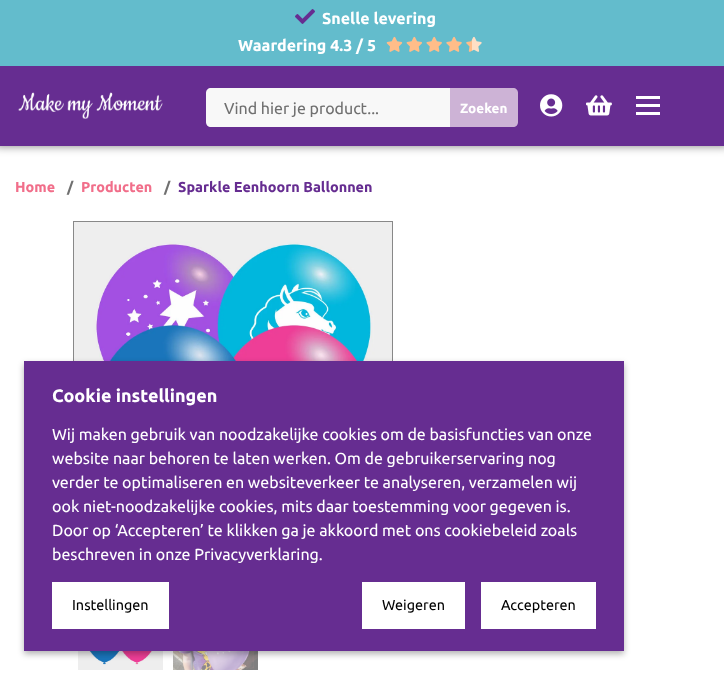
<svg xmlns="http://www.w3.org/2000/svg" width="724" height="675">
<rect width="100%" height="100%" fill="#fff"/>
<rect x="-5" y="-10" width="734" height="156" fill="#00000080" filter="blur(5px)"/>
<rect y="66" width="724" height="80" fill="#662d91"/>
<rect width="724" height="66" fill="#63bccc"/>
<image x="295" y="9" width="20" height="15" href="media/1.png"/>
<text x="322" y="24" style="font-family:Ubuntu;font-size:16px;font-weight:bold;fill:#fff">Snelle levering</text>
<text x="238" y="51" style="font-family:Ubuntu;font-size:16px;font-weight:bold;fill:#fff">Waardering 4.3 / 5</text>
<image x="386" y="36" width="96" height="16" href="media/2.png"/>
<image x="18" y="92" width="145" height="27" href="media/3.png"/>
<path d="M211 88h239v39h-239c-3 0-5-2-5-5v-29c0-3 2-5 5-5z" fill="#f8f8f8"/>
<text x="224" y="114" style="font-family:Ubuntu;font-size:16px;fill:#707070">Vind hier je product...</text>
<path d="M450 88h63c3 0 5 2 5 5v29c0 3-2 5-5 5h-63z" fill="#cdb3d6"/>
<text x="460" y="113" style="font-family:Ubuntu;font-size:13.5px;font-weight:bold;fill:#fff">Zoeken</text>
<image x="540" y="94" width="23" height="23" href="media/4.png"/>
<image x="586" y="95" width="26" height="21" href="media/5.png"/>
<rect x="636" y="96" width="24" height="3" fill="#fff"/>
<rect x="636" y="104" width="24" height="3" fill="#fff"/>
<rect x="636" y="112" width="24" height="3" fill="#fff"/>
<text x="15" y="192" style="font-family:Ubuntu;font-size:14.4px;font-weight:bold;fill:#f16e8a">Home</text>
<text x="67" y="192" style="font-family:Ubuntu;font-size:14.4px;font-weight:bold;fill:#707070">/</text>
<text x="81" y="192" style="font-family:Ubuntu;font-size:14.4px;font-weight:bold;fill:#f16e8a">Producten</text>
<text x="164" y="192" style="font-family:Ubuntu;font-size:14.4px;font-weight:bold;fill:#707070">/</text>
<text x="178" y="192" style="font-family:Ubuntu;font-size:14.4px;font-weight:bold;fill:#662d91">Sparkle Eenhoorn Ballonnen</text>
<rect x="73.5" y="221.5" width="319" height="319" fill="none" stroke="#888"/>
<image x="74" y="222" width="318" height="139" href="media/6.png"/>
<image x="78" y="651" width="85" height="19" href="media/7.png"/>
<image x="173" y="651" width="85" height="19" href="media/8.png"/>
<rect x="24" y="364" width="600" height="290" fill="#0000004d" filter="blur(3px)"/>
<rect x="24" y="361" width="600" height="290" fill="#662d91"/>
<text x="52" y="402" style="font-family:Ubuntu;font-size:18px;font-weight:bold;fill:#fff">Cookie instellingen</text>
<text x="52" y="440" style="font-family:Ubuntu;font-size:16px;fill:#fff">Wij maken gebruik van noodzakelijke cookies om de basisfuncties van onze</text>
<text x="52" y="464" style="font-family:Ubuntu;font-size:16px;fill:#fff">website naar behoren te laten werken. Om de gebruikerservaring nog</text>
<text x="52" y="488" style="font-family:Ubuntu;font-size:16px;fill:#fff">verder te optimaliseren en websiteverkeer te analyseren, verzamelen wij</text>
<text x="52" y="512" style="font-family:Ubuntu;font-size:16px;fill:#fff">ook niet-noodzakelijke cookies, mits daar toestemming voor gegeven is.</text>
<text x="52" y="536" style="font-family:Ubuntu;font-size:16px;fill:#fff">Door op ‘Accepteren’ te klikken ga je akkoord met ons cookiebeleid zoals</text>
<text x="52" y="560" style="font-family:Ubuntu;font-size:16px;fill:#fff">beschreven in onze Privacyverklaring.</text>
<rect x="52" y="582" width="117" height="47" fill="#fff"/>
<text x="72" y="610" style="font-family:Ubuntu;font-size:14.4px;fill:#000">Instellingen</text>
<rect x="362" y="582" width="103" height="47" fill="#fff"/>
<text x="382" y="610" style="font-family:Ubuntu;font-size:14.4px;fill:#000">Weigeren</text>
<rect x="481" y="582" width="115" height="47" fill="#fff"/>
<text x="501" y="610" style="font-family:Ubuntu;font-size:14.4px;fill:#000">Accepteren</text>
</svg>
